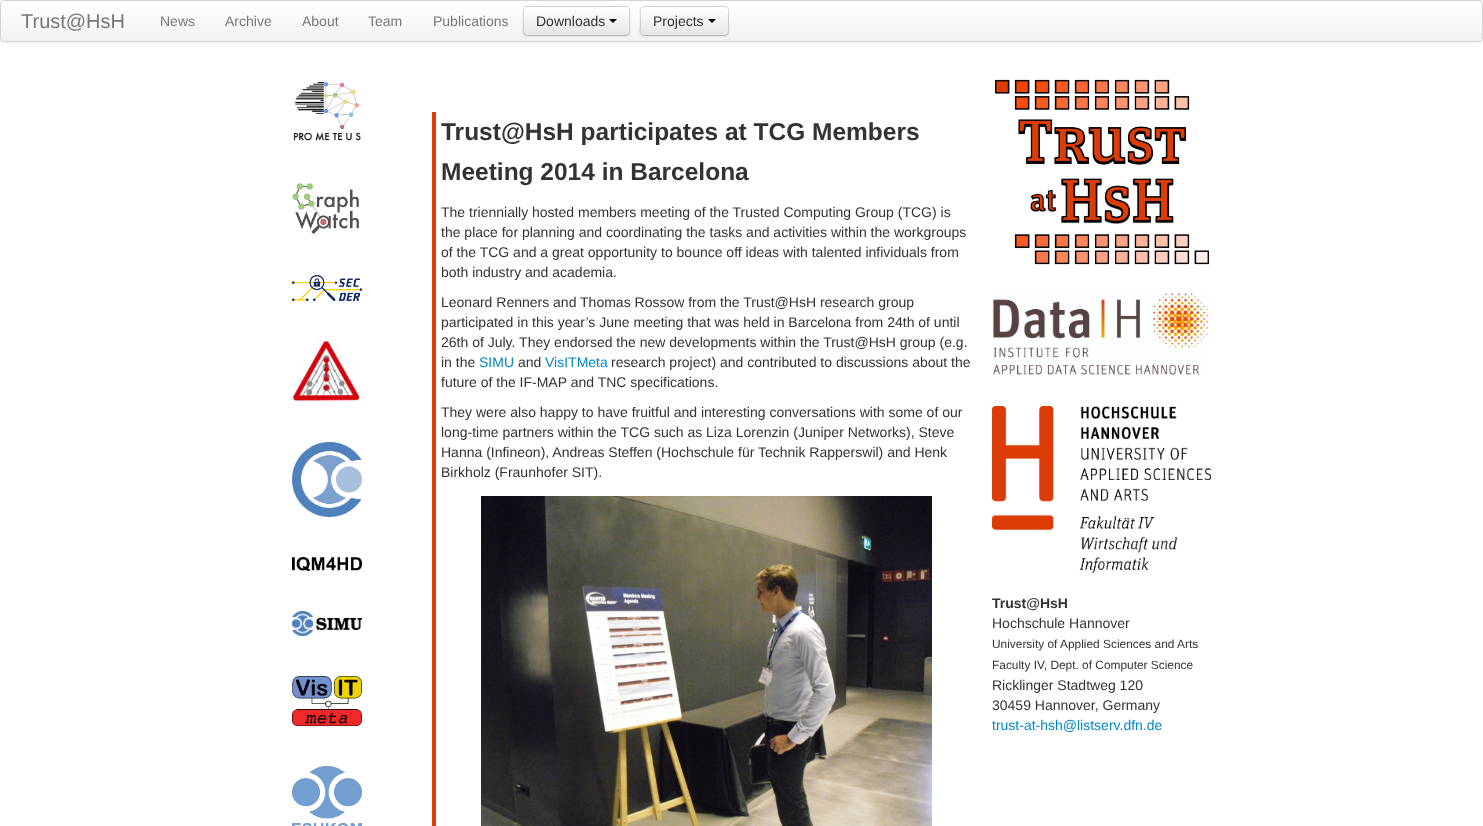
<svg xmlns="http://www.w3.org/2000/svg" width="1483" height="826">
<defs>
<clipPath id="clip1"><rect width="1483" height="42" rx="4"/></clipPath>
<linearGradient id="g1" gradientUnits="userSpaceOnUse" x1="742" y1="1" x2="742" y2="41"><stop offset="0" stop-color="#fff"/><stop offset="1" stop-color="#f2f2f2"/></linearGradient>
<clipPath id="clip2"><rect x="523" y="6" width="107" height="30" rx="4"/></clipPath>
<linearGradient id="g2" gradientUnits="userSpaceOnUse" x1="577" y1="7" x2="577" y2="35"><stop offset="0" stop-color="#fff"/><stop offset="1" stop-color="#e6e6e6"/></linearGradient>
<clipPath id="clip3"><rect x="640" y="6" width="89" height="30" rx="4"/></clipPath>
<linearGradient id="g3" gradientUnits="userSpaceOnUse" x1="685" y1="7" x2="685" y2="35"><stop offset="0" stop-color="#fff"/><stop offset="1" stop-color="#e6e6e6"/></linearGradient>
</defs>
<rect width="100%" height="100%" fill="#fff"/>
<rect y="1" width="1483" height="42" rx="4" fill="#00000012" filter="blur(2px)"/>
<g clip-path="url(#clip1)">
<rect y="1" width="1483" height="40" fill="url(#g1)"/>
</g>
<rect x="0.5" y="0.5" width="1482" height="41" rx="3.5" fill="none" stroke="#d4d4d4"/>
<text x="21" y="28" style="font-family:Liberation Sans;font-size:20px;fill:#777">Trust@HsH</text>
<text x="160" y="26" style="font-family:Liberation Sans;font-size:14px;fill:#777">News</text>
<text x="225" y="26" style="font-family:Liberation Sans;font-size:14px;fill:#777">Archive</text>
<text x="302" y="26" style="font-family:Liberation Sans;font-size:14px;fill:#777">About</text>
<text x="368" y="26" style="font-family:Liberation Sans;font-size:14px;fill:#777">Team</text>
<text x="433" y="26" style="font-family:Liberation Sans;font-size:14px;fill:#777">Publications</text>
<rect x="523" y="7" width="107" height="30" rx="4" fill="#0000000d" filter="blur(1px)"/>
<rect x="523" y="6" width="107" height="30" rx="4" fill="#f5f5f5"/>
<g clip-path="url(#clip2)">
<rect x="523" y="7" width="107" height="28" fill="url(#g2)"/>
</g>
<path d="M628.5 34.5l-2.5 1h-99.5l-2-1" fill="none" stroke="#00000040"/>
<path d="M524.5 34.5c-2.5-2.5-1-7-1-10c0-21.5-3.5-18 20-18h66c23.5 0 20-3.5 20 18c0 3 1.5 7.5-1 10" fill="none" stroke="#00000026"/>
<text x="536" y="26" style="font-family:Liberation Sans;font-size:14px;fill:#333">Downloads</text>
<path d="M609 19h8l-4 4z" fill="#000"/>
<rect x="640" y="7" width="89" height="30" rx="4" fill="#0000000d" filter="blur(1px)"/>
<rect x="640" y="6" width="89" height="30" rx="4" fill="#f5f5f5"/>
<g clip-path="url(#clip3)">
<rect x="640" y="7" width="89" height="28" fill="url(#g3)"/>
</g>
<path d="M727.5 34.5l-2 1h-82l-2-1" fill="none" stroke="#00000040"/>
<path d="M641.5 34.5c-2.5-2.5-1-7-1-10c0-20.5-4-18 17-18h54c19 0 17-3 17 14.5c0 3 1 11.5-1 13.5" fill="none" stroke="#00000026"/>
<text x="653" y="26" style="font-family:Liberation Sans;font-size:14px;fill:#333">Projects</text>
<path d="M708 19h8l-4 4z" fill="#000"/>
<image x="293" y="82" width="68" height="59" href="media/1.png"/>
<image x="292" y="183" width="67" height="51" href="media/2.png"/>
<image x="292" y="275" width="70" height="26" href="media/3.png"/>
<image x="292" y="341" width="69" height="60" href="media/4.png"/>
<image x="292" y="442" width="70" height="75" href="media/5.png"/>
<image x="292" y="557" width="70" height="14" href="media/6.png"/>
<image x="292" y="611" width="70" height="25" href="media/7.png"/>
<image x="292" y="676" width="70" height="50" href="media/8.png"/>
<image x="292" y="766" width="70" height="60" href="media/9.png"/>
<rect x="432" y="112" width="4" height="714" fill="#dc3c05"/>
<text x="441" y="140" style="font-family:Liberation Sans;font-size:24.5px;font-weight:bold;fill:#333">Trust@HsH participates at TCG Members</text>
<text x="441" y="180" style="font-family:Liberation Sans;font-size:24.5px;font-weight:bold;fill:#333">Meeting 2014 in Barcelona</text>
<text x="441" y="217" style="font-family:Liberation Sans;font-size:14px;fill:#333">The triennially hosted members meeting of the Trusted Computing Group (TCG) is</text>
<text x="441" y="237" style="font-family:Liberation Sans;font-size:14px;fill:#333">the place for planning and coordinating the tasks and activities within the workgroups</text>
<text x="441" y="257" style="font-family:Liberation Sans;font-size:14px;fill:#333">of the TCG and a great opportunity to bounce off ideas with talented infividuals from</text>
<text x="441" y="277" style="font-family:Liberation Sans;font-size:14px;fill:#333">both industry and academia.</text>
<text x="441" y="307" style="font-family:Liberation Sans;font-size:14px;fill:#333">Leonard Renners and Thomas Rossow from the Trust@HsH research group</text>
<text x="441" y="327" style="font-family:Liberation Sans;font-size:14px;fill:#333">participated in this year’s June meeting that was held in Barcelona from 24th of until</text>
<text x="441" y="347" style="font-family:Liberation Sans;font-size:14px;fill:#333">26th of July. They endorsed the new developments within the Trust@HsH group (e.g.</text>
<text x="441" y="367" style="font-family:Liberation Sans;font-size:14px;fill:#333">in the</text>
<text x="479" y="367" style="font-family:Liberation Sans;font-size:14px;fill:#08c">SIMU</text>
<text x="518" y="367" style="font-family:Liberation Sans;font-size:14px;fill:#333">and</text>
<text x="545" y="367" style="font-family:Liberation Sans;font-size:14px;fill:#08c">VisITMeta</text>
<text x="611" y="367" style="font-family:Liberation Sans;font-size:14px;fill:#333">research project) and contributed to discussions about the</text>
<text x="441" y="387" style="font-family:Liberation Sans;font-size:14px;fill:#333">future of the IF-MAP and TNC specifications.</text>
<text x="441" y="417" style="font-family:Liberation Sans;font-size:14px;fill:#333">They were also happy to have fruitful and interesting conversations with some of our</text>
<text x="441" y="437" style="font-family:Liberation Sans;font-size:14px;fill:#333">long-time partners within the TCG such as Liza Lorenzin (Juniper Networks), Steve</text>
<text x="441" y="457" style="font-family:Liberation Sans;font-size:14px;fill:#333">Hanna (Infineon), Andreas Steffen (Hochschule für Technik Rapperswil) and Henk</text>
<text x="441" y="477" style="font-family:Liberation Sans;font-size:14px;fill:#333">Birkholz (Fraunhofer SIT).</text>
<image x="481" y="496" width="451" height="330" href="media/10.png"/>
<image x="995" y="79" width="215" height="186" href="media/11.png"/>
<image x="992" y="293" width="217" height="82" href="media/12.png"/>
<image x="992" y="406" width="219" height="167" href="media/13.png"/>
<text x="992" y="608" style="font-family:Liberation Sans;font-size:14px;font-weight:bold;fill:#333">Trust@HsH</text>
<text x="992" y="628" style="font-family:Liberation Sans;font-size:14px;fill:#333">Hochschule Hannover</text>
<text x="992" y="648" style="font-family:Liberation Sans;font-size:11.9px;fill:#333">University of Applied Sciences and Arts</text>
<text x="992" y="669" style="font-family:Liberation Sans;font-size:11.9px;fill:#333">Faculty IV, Dept. of Computer Science</text>
<text x="992" y="690" style="font-family:Liberation Sans;font-size:14px;fill:#333">Ricklinger Stadtweg 120</text>
<text x="992" y="710" style="font-family:Liberation Sans;font-size:14px;fill:#333">30459 Hannover, Germany</text>
<text x="992" y="730" style="font-family:Liberation Sans;font-size:14px;fill:#08c">trust-at-hsh@listserv.dfn.de</text>
</svg>
